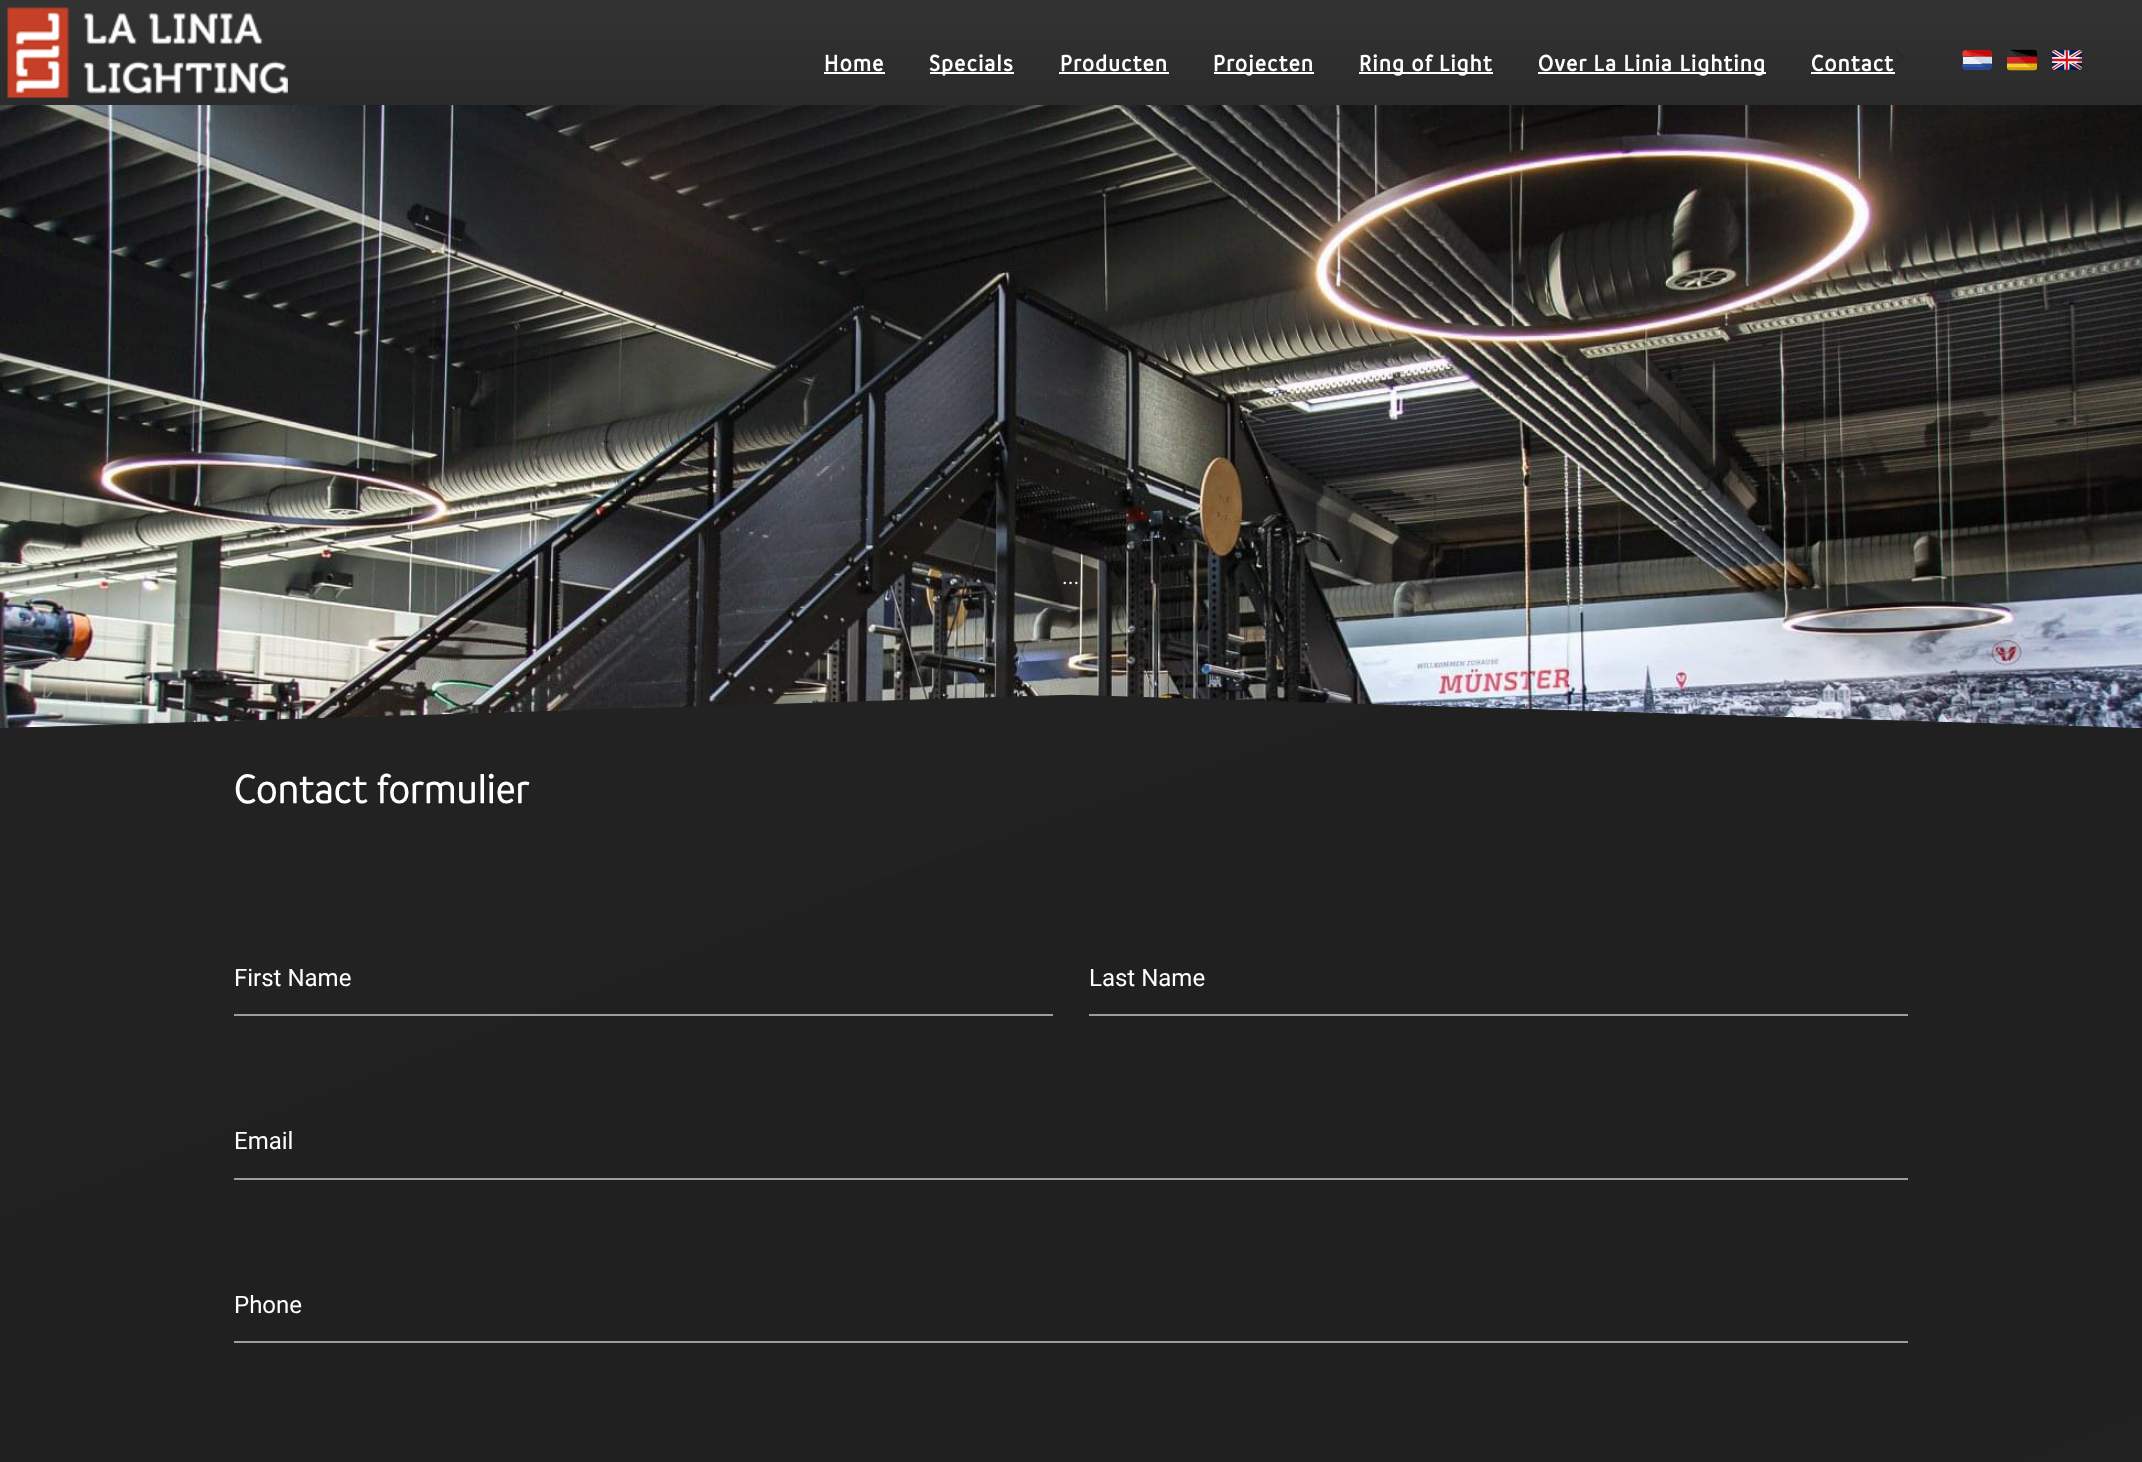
<svg xmlns="http://www.w3.org/2000/svg" width="2142" height="1462">
<defs>
<linearGradient id="g1" gradientUnits="userSpaceOnUse" x1="1071" y1="105" x2="1071" y2="0"><stop offset="0.07" stop-color="#2b2b2b"/><stop offset="1" stop-color="#333"/></linearGradient>
</defs>
<rect width="100%" height="100%" fill="#fff"/>
<rect width="2142" height="105" fill="url(#g1)"/>
<image x="7" y="7" width="281" height="91" href="media/1.png"/>
<text x="824" y="71" style="font-family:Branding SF;font-size:24px;font-weight:bold;letter-spacing:1.5px;fill:#fff">Home</text>
<rect x="824" y="72" width="61" height="2" fill="#fff"/>
<rect x="930" y="72" width="84" height="2" fill="#fff"/>
<text x="929" y="71" style="font-family:Branding SF;font-size:24px;font-weight:bold;letter-spacing:1.5px;fill:#fff">Specials</text>
<text x="1060" y="71" style="font-family:Branding SF;font-size:24px;font-weight:bold;letter-spacing:1.5px;fill:#fff">Producten</text>
<rect x="1059" y="72" width="110" height="2" fill="#fff"/>
<path d="M1894 64l7-7l-7-7l2-2l9 9l-9 9z" fill="#2b2b2b"/>
<rect x="1214" y="72" width="100" height="2" fill="#fff"/>
<text x="1213" y="71" style="font-family:Branding SF;font-size:24px;font-weight:bold;letter-spacing:1.5px;fill:#fff">Projecten</text>
<rect x="1359" y="72" width="134" height="2" fill="#fff"/>
<text x="1359" y="71" style="font-family:Branding SF;font-size:24px;font-weight:bold;letter-spacing:1.5px;fill:#fff">Ring of Light</text>
<rect x="1538" y="72" width="228" height="2" fill="#fff"/>
<text x="1538" y="71" style="font-family:Branding SF;font-size:24px;font-weight:bold;letter-spacing:1.5px;fill:#fff">Over La Linia Lighting</text>
<text x="1811" y="71" style="font-family:Branding SF;font-size:24px;font-weight:bold;letter-spacing:1.5px;fill:#fff">Contact</text>
<rect x="1811" y="72" width="84" height="2" fill="#fff"/>
<image x="1962" y="50" width="30" height="20" href="media/2.png"/>
<image x="2007" y="49" width="30" height="22" href="media/3.png"/>
<image x="2052" y="50" width="30" height="20" href="media/4.png"/>
<image x="0" y="105" width="2142" height="624" href="media/5.png"/>
<text x="1062" y="584" style="font-family:Roboto;font-size:22px;fill:#f2f2f2">...</text>
<image x="0" y="694" width="2142" height="768" href="media/6.png"/>
<text x="234" y="803" style="font-family:Branding SF;font-size:44px;font-weight:500;fill:#fff">Contact formulier</text>
<text x="234" y="986" style="font-family:Roboto;font-size:24px;fill:#fff">First Name</text>
<rect x="234" y="1014" width="819" height="2" fill="#9e9e9e"/>
<text x="1089" y="986" style="font-family:Roboto;font-size:24px;fill:#fff">Last Name</text>
<rect x="1089" y="1014" width="819" height="2" fill="#9e9e9e"/>
<text x="234" y="1149" style="font-family:Roboto;font-size:24px;fill:#fff">Email</text>
<rect x="234" y="1178" width="1674" height="2" fill="#9e9e9e"/>
<text x="234" y="1313" style="font-family:Roboto;font-size:24px;fill:#fff">Phone</text>
<rect x="234" y="1341" width="1674" height="2" fill="#9e9e9e"/>
</svg>
